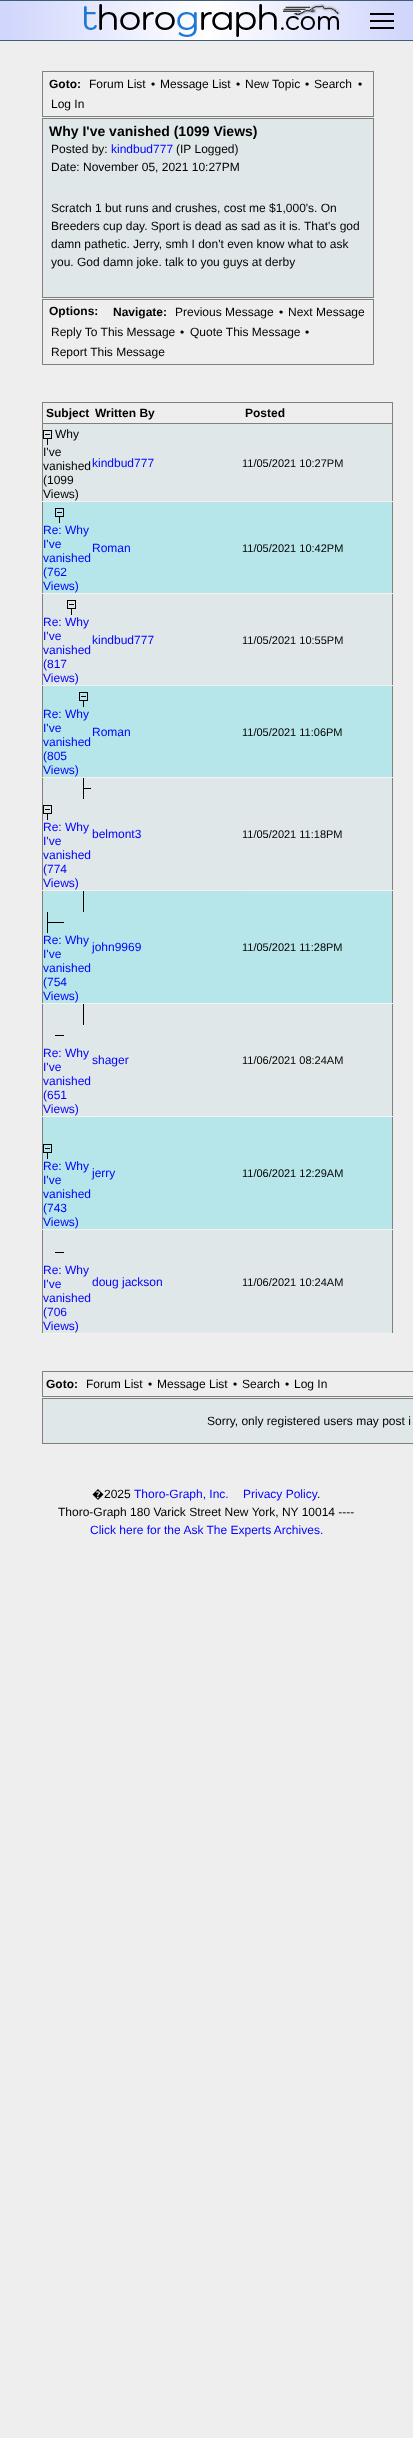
<svg xmlns="http://www.w3.org/2000/svg" width="413" height="2462">
<defs>
<linearGradient id="g1" gradientUnits="userSpaceOnUse" x1="0" y1="21" x2="413" y2="20"><stop offset="0" stop-color="#cfd5fc"/><stop offset="0.5" stop-color="#fff"/><stop offset="1" stop-color="#cfd5fc"/></linearGradient>
</defs>
<rect width="100%" height="100%" fill="#fff"/>
<rect y="1" width="413" height="39" fill="url(#g1)"/>
<rect width="413" height="1" fill="#405d74"/>
<rect y="40" width="413" height="1" fill="#405d74"/>
<image x="84" y="3" width="257" height="34" href="media/1.png"/>
<rect x="370" y="20" width="24" height="2" fill="#000"/>
<rect x="370" y="13" width="24" height="2" fill="#000"/>
<rect x="370" y="27" width="24" height="2" fill="#000"/>
<rect y="41" width="413" height="2397" fill="#eee"/>
<rect x="42.5" y="71.5" width="331" height="45" fill="none" stroke="#808080"/>
<text x="49" y="88" style="font-family:Liberation Sans;font-size:12px;font-weight:bold;fill:#000">Goto:</text>
<text x="89" y="88" style="font-family:Liberation Sans;font-size:12px;fill:#000">Forum List</text>
<text x="151" y="88" style="font-family:Liberation Sans;font-size:12px;fill:#000">•</text>
<text x="160" y="88" style="font-family:Liberation Sans;font-size:12px;fill:#000">Message List</text>
<text x="236" y="88" style="font-family:Liberation Sans;font-size:12px;fill:#000">•</text>
<text x="245" y="88" style="font-family:Liberation Sans;font-size:12px;fill:#000">New Topic</text>
<text x="305" y="88" style="font-family:Liberation Sans;font-size:12px;fill:#000">•</text>
<text x="314" y="88" style="font-family:Liberation Sans;font-size:12px;fill:#000">Search</text>
<text x="358" y="88" style="font-family:Liberation Sans;font-size:12px;fill:#000">•</text>
<text x="51" y="108" style="font-family:Liberation Sans;font-size:12px;fill:#000">Log In</text>
<rect x="42.5" y="118.5" width="331" height="179" fill="#dfe7e8" stroke="#808080"/>
<text x="49" y="136" style="font-family:Liberation Sans;font-size:14px;font-weight:bold;fill:#000">Why I've vanished (1099 Views)</text>
<text x="51" y="153" style="font-family:Liberation Sans;font-size:12px;fill:#000">Posted by:</text>
<text x="111" y="153" style="font-family:Liberation Sans;font-size:12px;fill:#00f">kindbud777</text>
<text x="176" y="153" style="font-family:Liberation Sans;font-size:12px;fill:#000">(IP Logged)</text>
<text x="51" y="171" style="font-family:Liberation Sans;font-size:12px;fill:#000">Date: November 05, 2021 10:27PM</text>
<text x="51" y="212" style="font-family:Liberation Sans;font-size:12px;fill:#000">Scratch 1 but runs and crushes, cost me $1,000's. On</text>
<text x="51" y="230" style="font-family:Liberation Sans;font-size:12px;fill:#000">Breeders cup day. Sport is dead as sad as it is. That's god</text>
<text x="51" y="248" style="font-family:Liberation Sans;font-size:12px;fill:#000">damn pathetic. Jerry, smh I don't even know what to ask</text>
<text x="51" y="266" style="font-family:Liberation Sans;font-size:12px;fill:#000">you. God damn joke. talk to you guys at derby</text>
<rect x="42.5" y="299.5" width="331" height="65" fill="none" stroke="#808080"/>
<text x="49" y="315" style="font-family:Liberation Sans;font-size:12px;font-weight:bold;fill:#000">Options:</text>
<text x="113" y="316" style="font-family:Liberation Sans;font-size:12px;font-weight:bold;fill:#000">Navigate:</text>
<text x="175" y="316" style="font-family:Liberation Sans;font-size:12px;fill:#000">Previous Message</text>
<text x="279" y="316" style="font-family:Liberation Sans;font-size:12px;fill:#000">•</text>
<text x="288" y="316" style="font-family:Liberation Sans;font-size:12px;fill:#000">Next Message</text>
<text x="51" y="336" style="font-family:Liberation Sans;font-size:12px;fill:#000">Reply To This Message</text>
<text x="180" y="336" style="font-family:Liberation Sans;font-size:12px;fill:#000">•</text>
<text x="190" y="336" style="font-family:Liberation Sans;font-size:12px;fill:#000">Quote This Message</text>
<text x="305" y="336" style="font-family:Liberation Sans;font-size:12px;fill:#000">•</text>
<text x="51" y="356" style="font-family:Liberation Sans;font-size:12px;fill:#000">Report This Message</text>
<rect x="42" y="402" width="351" height="1" fill="#808080"/>
<rect x="392" y="402" width="1" height="932" fill="#808080"/>
<rect x="42" y="402" width="1" height="932" fill="#808080"/>
<text x="46" y="417" style="font-family:Liberation Sans;font-size:12px;font-weight:bold;fill:#000">Subject</text>
<text x="95" y="417" style="font-family:Liberation Sans;font-size:12px;font-weight:bold;fill:#000">Written By</text>
<rect x="42" y="423" width="351" height="1" fill="#808080"/>
<text x="245" y="417" style="font-family:Liberation Sans;font-size:12px;font-weight:bold;fill:#000">Posted</text>
<rect x="93" y="501" width="149" height="1" fill="#f1f1f1"/>
<rect x="43" y="424" width="349" height="77" fill="#dfe7e8"/>
<rect x="42" y="501" width="51" height="1" fill="#f2f2f2"/>
<image x="43" y="430" width="9" height="15" href="media/2.png"/>
<text x="55" y="438" style="font-family:Liberation Sans;font-size:12px;fill:#000">Why</text>
<text x="43" y="456" style="font-family:Liberation Sans;font-size:12px;fill:#000">I've</text>
<text x="43" y="470" style="font-family:Liberation Sans;font-size:12px;fill:#000">vanished</text>
<text x="43" y="484" style="font-family:Liberation Sans;font-size:12px;fill:#000">(1099</text>
<text x="43" y="498" style="font-family:Liberation Sans;font-size:12px;fill:#000">Views)</text>
<text x="92" y="467" style="font-family:Liberation Sans;font-size:12px;fill:#00f">kindbud777</text>
<rect x="242" y="501" width="151" height="1" fill="#f2f2f2"/>
<text x="242" y="467" style="font-family:Liberation Sans;font-size:11px;fill:#000">11/05/2021 10:27PM</text>
<rect x="43" y="502" width="349" height="91" fill="#b6e6ea"/>
<image x="55" y="508" width="9" height="15" href="media/3.png"/>
<text x="43" y="534" style="font-family:Liberation Sans;font-size:12px;fill:#00f">Re: Why</text>
<text x="43" y="548" style="font-family:Liberation Sans;font-size:12px;fill:#00f">I've</text>
<text x="43" y="562" style="font-family:Liberation Sans;font-size:12px;fill:#00f">vanished</text>
<text x="43" y="576" style="font-family:Liberation Sans;font-size:12px;fill:#00f">(762</text>
<text x="43" y="590" style="font-family:Liberation Sans;font-size:12px;fill:#00f">Views)</text>
<text x="92" y="552" style="font-family:Liberation Sans;font-size:12px;fill:#00f">Roman</text>
<rect x="42" y="593" width="351" height="1" fill="#f2f2f2"/>
<text x="242" y="552" style="font-family:Liberation Sans;font-size:11px;fill:#000">11/05/2021 10:42PM</text>
<rect x="93" y="685" width="149" height="1" fill="#f1f1f1"/>
<rect x="43" y="594" width="349" height="91" fill="#dfe7e8"/>
<rect x="42" y="685" width="51" height="1" fill="#f2f2f2"/>
<image x="67" y="600" width="9" height="15" href="media/2.png"/>
<text x="43" y="626" style="font-family:Liberation Sans;font-size:12px;fill:#00f">Re: Why</text>
<text x="43" y="640" style="font-family:Liberation Sans;font-size:12px;fill:#00f">I've</text>
<text x="43" y="654" style="font-family:Liberation Sans;font-size:12px;fill:#00f">vanished</text>
<text x="43" y="668" style="font-family:Liberation Sans;font-size:12px;fill:#00f">(817</text>
<text x="43" y="682" style="font-family:Liberation Sans;font-size:12px;fill:#00f">Views)</text>
<text x="92" y="644" style="font-family:Liberation Sans;font-size:12px;fill:#00f">kindbud777</text>
<rect x="242" y="685" width="151" height="1" fill="#f2f2f2"/>
<text x="242" y="644" style="font-family:Liberation Sans;font-size:11px;fill:#000">11/05/2021 10:55PM</text>
<rect x="43" y="686" width="349" height="91" fill="#b6e6ea"/>
<image x="79" y="692" width="9" height="15" href="media/3.png"/>
<text x="43" y="718" style="font-family:Liberation Sans;font-size:12px;fill:#00f">Re: Why</text>
<text x="43" y="732" style="font-family:Liberation Sans;font-size:12px;fill:#00f">I've</text>
<text x="43" y="746" style="font-family:Liberation Sans;font-size:12px;fill:#00f">vanished</text>
<text x="43" y="760" style="font-family:Liberation Sans;font-size:12px;fill:#00f">(805</text>
<text x="43" y="774" style="font-family:Liberation Sans;font-size:12px;fill:#00f">Views)</text>
<text x="92" y="736" style="font-family:Liberation Sans;font-size:12px;fill:#00f">Roman</text>
<rect x="42" y="777" width="351" height="1" fill="#f2f2f2"/>
<text x="242" y="736" style="font-family:Liberation Sans;font-size:11px;fill:#000">11/05/2021 11:06PM</text>
<rect x="93" y="890" width="149" height="1" fill="#f1f1f1"/>
<rect x="43" y="778" width="349" height="112" fill="#dfe7e8"/>
<rect x="42" y="890" width="51" height="1" fill="#f2f2f2"/>
<image x="83" y="778" width="8" height="21" href="media/4.png"/>
<image x="43" y="805" width="9" height="15" href="media/2.png"/>
<text x="43" y="831" style="font-family:Liberation Sans;font-size:12px;fill:#00f">Re: Why</text>
<text x="43" y="845" style="font-family:Liberation Sans;font-size:12px;fill:#00f">I've</text>
<text x="43" y="859" style="font-family:Liberation Sans;font-size:12px;fill:#00f">vanished</text>
<text x="43" y="873" style="font-family:Liberation Sans;font-size:12px;fill:#00f">(774</text>
<text x="43" y="887" style="font-family:Liberation Sans;font-size:12px;fill:#00f">Views)</text>
<text x="92" y="838" style="font-family:Liberation Sans;font-size:12px;fill:#00f">belmont3</text>
<rect x="242" y="890" width="151" height="1" fill="#f2f2f2"/>
<text x="242" y="838" style="font-family:Liberation Sans;font-size:11px;fill:#000">11/05/2021 11:18PM</text>
<rect x="43" y="891" width="349" height="112" fill="#b6e6ea"/>
<rect x="83" y="891" width="1" height="21" fill="#000"/>
<image x="47" y="912" width="8" height="21" href="media/5.png"/>
<rect x="55" y="922" width="9" height="1" fill="#000"/>
<text x="43" y="944" style="font-family:Liberation Sans;font-size:12px;fill:#00f">Re: Why</text>
<text x="43" y="958" style="font-family:Liberation Sans;font-size:12px;fill:#00f">I've</text>
<text x="43" y="972" style="font-family:Liberation Sans;font-size:12px;fill:#00f">vanished</text>
<text x="43" y="986" style="font-family:Liberation Sans;font-size:12px;fill:#00f">(754</text>
<text x="43" y="1000" style="font-family:Liberation Sans;font-size:12px;fill:#00f">Views)</text>
<text x="92" y="951" style="font-family:Liberation Sans;font-size:12px;fill:#00f">john9969</text>
<rect x="42" y="1003" width="351" height="1" fill="#f2f2f2"/>
<text x="242" y="951" style="font-family:Liberation Sans;font-size:11px;fill:#000">11/05/2021 11:28PM</text>
<rect x="93" y="1116" width="149" height="1" fill="#f1f1f1"/>
<rect x="43" y="1004" width="349" height="112" fill="#dfe7e8"/>
<rect x="42" y="1116" width="51" height="1" fill="#f2f2f2"/>
<rect x="83" y="1004" width="1" height="21" fill="#000"/>
<rect x="55" y="1035" width="9" height="1" fill="#000"/>
<text x="43" y="1057" style="font-family:Liberation Sans;font-size:12px;fill:#00f">Re: Why</text>
<text x="43" y="1071" style="font-family:Liberation Sans;font-size:12px;fill:#00f">I've</text>
<text x="43" y="1085" style="font-family:Liberation Sans;font-size:12px;fill:#00f">vanished</text>
<text x="43" y="1099" style="font-family:Liberation Sans;font-size:12px;fill:#00f">(651</text>
<text x="43" y="1113" style="font-family:Liberation Sans;font-size:12px;fill:#00f">Views)</text>
<text x="92" y="1064" style="font-family:Liberation Sans;font-size:12px;fill:#00f">shager</text>
<rect x="242" y="1116" width="151" height="1" fill="#f2f2f2"/>
<text x="242" y="1064" style="font-family:Liberation Sans;font-size:11px;fill:#000">11/06/2021 08:24AM</text>
<rect x="43" y="1117" width="349" height="112" fill="#b6e6ea"/>
<image x="43" y="1144" width="9" height="15" href="media/3.png"/>
<text x="43" y="1170" style="font-family:Liberation Sans;font-size:12px;fill:#00f">Re: Why</text>
<text x="43" y="1184" style="font-family:Liberation Sans;font-size:12px;fill:#00f">I've</text>
<text x="43" y="1198" style="font-family:Liberation Sans;font-size:12px;fill:#00f">vanished</text>
<text x="43" y="1212" style="font-family:Liberation Sans;font-size:12px;fill:#00f">(743</text>
<text x="43" y="1226" style="font-family:Liberation Sans;font-size:12px;fill:#00f">Views)</text>
<text x="92" y="1177" style="font-family:Liberation Sans;font-size:12px;fill:#00f">jerry</text>
<rect x="42" y="1229" width="351" height="1" fill="#f2f2f2"/>
<text x="242" y="1177" style="font-family:Liberation Sans;font-size:11px;fill:#000">11/06/2021 12:29AM</text>
<rect x="43" y="1230" width="349" height="103" fill="#dfe7e8"/>
<rect x="55" y="1252" width="9" height="1" fill="#000"/>
<text x="43" y="1274" style="font-family:Liberation Sans;font-size:12px;fill:#00f">Re: Why</text>
<text x="43" y="1288" style="font-family:Liberation Sans;font-size:12px;fill:#00f">I've</text>
<text x="43" y="1302" style="font-family:Liberation Sans;font-size:12px;fill:#00f">vanished</text>
<text x="43" y="1316" style="font-family:Liberation Sans;font-size:12px;fill:#00f">(706</text>
<text x="43" y="1330" style="font-family:Liberation Sans;font-size:12px;fill:#00f">Views)</text>
<text x="92" y="1286" style="font-family:Liberation Sans;font-size:12px;fill:#00f">doug jackson</text>
<rect x="42" y="1333" width="351" height="1" fill="#f2f2f2"/>
<text x="242" y="1286" style="font-family:Liberation Sans;font-size:11px;fill:#000">11/06/2021 10:24AM</text>
<rect x="42.5" y="1371.5" width="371" height="25" fill="none" stroke="#808080"/>
<text x="46" y="1388" style="font-family:Liberation Sans;font-size:12px;font-weight:bold;fill:#000">Goto:</text>
<text x="86" y="1388" style="font-family:Liberation Sans;font-size:12px;fill:#000">Forum List</text>
<text x="148" y="1388" style="font-family:Liberation Sans;font-size:12px;fill:#000">•</text>
<text x="157" y="1388" style="font-family:Liberation Sans;font-size:12px;fill:#000">Message List</text>
<text x="233" y="1388" style="font-family:Liberation Sans;font-size:12px;fill:#000">•</text>
<text x="242" y="1388" style="font-family:Liberation Sans;font-size:12px;fill:#000">Search</text>
<text x="285" y="1388" style="font-family:Liberation Sans;font-size:12px;fill:#000">•</text>
<text x="294" y="1388" style="font-family:Liberation Sans;font-size:12px;fill:#000">Log In</text>
<rect x="42.5" y="1398.5" width="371" height="45" fill="#dfe7e8" stroke="#808080"/>
<text x="207" y="1425" style="font-family:Liberation Sans;font-size:12px;fill:#000">Sorry, only registered users may post i</text>
<text x="92" y="1498" style="font-family:Noto Sans;font-size:12px;fill:#000">�</text>
<text x="104" y="1498" style="font-family:Liberation Sans;font-size:12px;fill:#000">2025</text>
<text x="134" y="1498" style="font-family:Liberation Sans;font-size:12px;fill:#00f">Thoro-Graph, Inc.</text>
<text x="243" y="1498" style="font-family:Liberation Sans;font-size:12px;fill:#00f">Privacy Policy</text>
<text x="317" y="1498" style="font-family:Liberation Sans;font-size:12px;fill:#000">.</text>
<text x="58" y="1516" style="font-family:Liberation Sans;font-size:12px;fill:#000">Thoro-Graph 180 Varick Street New York, NY 10014 ----</text>
<text x="90" y="1534" style="font-family:Liberation Sans;font-size:12px;fill:#00f">Click here for the Ask The Experts Archives.</text>
</svg>
